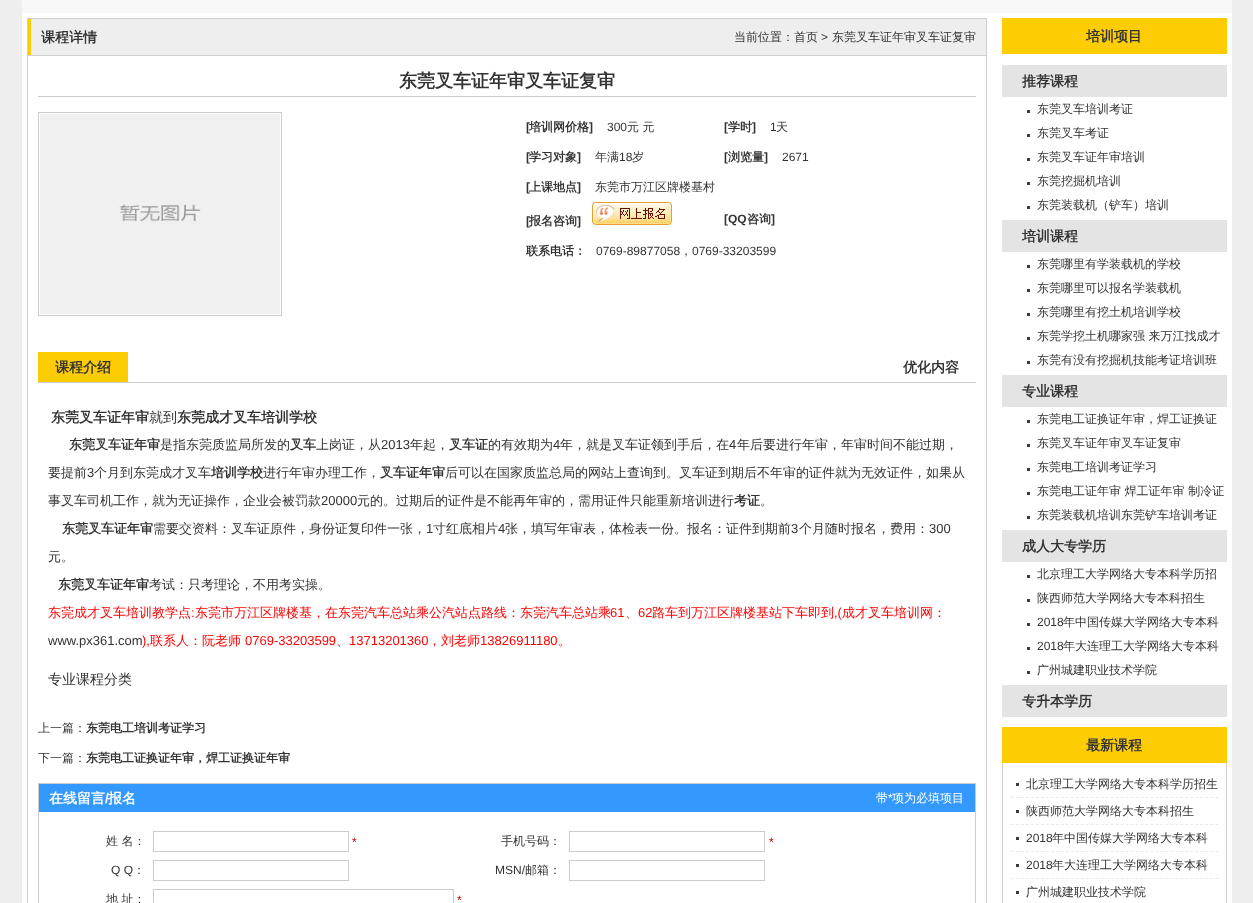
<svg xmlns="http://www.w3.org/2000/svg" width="1253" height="903">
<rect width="100%" height="100%" fill="#eee"/>
<rect x="22" width="1210" height="13" fill="#f8f8f8"/>
<rect x="22" y="13" width="1210" height="890" fill="#fff"/>
<rect x="31" y="19" width="955" height="36" fill="#eee"/>
<rect x="27.5" y="18.5" width="959" height="37" fill="none" stroke="#cfcfcf"/>
<rect x="28" y="19" width="3" height="36" fill="#fdcc03"/>
<text x="41" y="42" style="font-family:WenQuanYi Zen Hei;font-size:14px;font-weight:bold;fill:#333">课程详情</text>
<text x="734" y="41" style="font-family:WenQuanYi Zen Hei;font-size:12px;font-weight:500;fill:#333">当前位置：首页</text>
<text x="821" y="41" style="font-family:Liberation Sans;font-size:12px;fill:#333">&gt;</text>
<text x="832" y="41" style="font-family:WenQuanYi Zen Hei;font-size:12px;font-weight:500;fill:#333">东莞叉车证年审叉车证复审</text>
<rect x="986" y="56" width="1" height="847" fill="#cfcfcf"/>
<rect x="27" y="56" width="1" height="847" fill="#cfcfcf"/>
<rect x="38" y="96" width="938" height="1" fill="#ccc"/>
<text x="399" y="87" style="font-family:WenQuanYi Zen Hei;font-size:18px;font-weight:bold;fill:#333">东莞叉车证年审叉车证复审</text>
<rect x="38.5" y="112.5" width="243" height="203" fill="none" stroke="#ccc"/>
<image x="40" y="114" width="240" height="200" href="media/1.png"/>
<text x="526" y="131" style="font-family:Liberation Sans;font-size:12px;font-weight:bold;fill:#333">[</text>
<text x="529" y="131" style="font-family:WenQuanYi Zen Hei;font-size:12px;font-weight:bold;fill:#333">培训网价格</text>
<text x="589" y="131" style="font-family:Liberation Sans;font-size:12px;font-weight:bold;fill:#333">]</text>
<text x="607" y="131" style="font-family:Liberation Sans;font-size:12px;fill:#333">300</text>
<text x="627" y="131" style="font-family:WenQuanYi Zen Hei;font-size:12px;font-weight:500;fill:#333">元 元</text>
<text x="724" y="131" style="font-family:Liberation Sans;font-size:12px;font-weight:bold;fill:#333">[</text>
<text x="728" y="131" style="font-family:WenQuanYi Zen Hei;font-size:12px;font-weight:bold;fill:#333">学时</text>
<text x="752" y="131" style="font-family:Liberation Sans;font-size:12px;font-weight:bold;fill:#333">]</text>
<text x="770" y="131" style="font-family:Liberation Sans;font-size:12px;fill:#333">1</text>
<text x="776" y="131" style="font-family:WenQuanYi Zen Hei;font-size:12px;font-weight:500;fill:#333">天</text>
<text x="526" y="161" style="font-family:Liberation Sans;font-size:12px;font-weight:bold;fill:#333">[</text>
<text x="529" y="161" style="font-family:WenQuanYi Zen Hei;font-size:12px;font-weight:bold;fill:#333">学习对象</text>
<text x="577" y="161" style="font-family:Liberation Sans;font-size:12px;font-weight:bold;fill:#333">]</text>
<text x="595" y="161" style="font-family:WenQuanYi Zen Hei;font-size:12px;font-weight:500;fill:#333">年满</text>
<text x="619" y="161" style="font-family:Liberation Sans;font-size:12px;fill:#333">18</text>
<text x="632" y="161" style="font-family:WenQuanYi Zen Hei;font-size:12px;font-weight:500;fill:#333">岁</text>
<text x="724" y="161" style="font-family:Liberation Sans;font-size:12px;font-weight:bold;fill:#333">[</text>
<text x="728" y="161" style="font-family:WenQuanYi Zen Hei;font-size:12px;font-weight:bold;fill:#333">浏览量</text>
<text x="764" y="161" style="font-family:Liberation Sans;font-size:12px;font-weight:bold;fill:#333">]</text>
<text x="782" y="161" style="font-family:Liberation Sans;font-size:12px;fill:#333">2671</text>
<text x="526" y="191" style="font-family:Liberation Sans;font-size:12px;font-weight:bold;fill:#333">[</text>
<text x="529" y="191" style="font-family:WenQuanYi Zen Hei;font-size:12px;font-weight:bold;fill:#333">上课地点</text>
<text x="577" y="191" style="font-family:Liberation Sans;font-size:12px;font-weight:bold;fill:#333">]</text>
<text x="595" y="191" style="font-family:WenQuanYi Zen Hei;font-size:12px;font-weight:500;fill:#333">东莞市万江区牌楼基村</text>
<text x="526" y="225" style="font-family:Liberation Sans;font-size:12px;font-weight:bold;fill:#333">[</text>
<text x="529" y="225" style="font-family:WenQuanYi Zen Hei;font-size:12px;font-weight:bold;fill:#333">报名咨询</text>
<text x="577" y="225" style="font-family:Liberation Sans;font-size:12px;font-weight:bold;fill:#333">]</text>
<image x="592" y="202" width="80" height="23" href="media/2.png"/>
<text x="724" y="223" style="font-family:Liberation Sans;font-size:12px;font-weight:bold;fill:#333">[QQ</text>
<text x="747" y="223" style="font-family:WenQuanYi Zen Hei;font-size:12px;font-weight:bold;fill:#333">咨询</text>
<text x="771" y="223" style="font-family:Liberation Sans;font-size:12px;font-weight:bold;fill:#333">]</text>
<text x="526" y="255" style="font-family:WenQuanYi Zen Hei;font-size:12px;font-weight:bold;fill:#333">联系电话：</text>
<text x="596" y="255" style="font-family:Liberation Sans;font-size:12px;fill:#333">0769-89877058</text>
<text x="680" y="255" style="font-family:WenQuanYi Zen Hei;font-size:12px;font-weight:500;fill:#333">，</text>
<text x="692" y="255" style="font-family:Liberation Sans;font-size:12px;fill:#333">0769-33203599</text>
<rect x="38" y="382" width="938" height="1" fill="#ccc"/>
<rect x="38" y="352" width="90" height="30" fill="#fdcc03"/>
<text x="55" y="372" style="font-family:WenQuanYi Zen Hei;font-size:14px;font-weight:bold;fill:#333">课程介绍</text>
<text x="903" y="372" style="font-family:WenQuanYi Zen Hei;font-size:14px;font-weight:bold;fill:#333">优化内容</text>
<text x="51" y="422" style="font-family:WenQuanYi Zen Hei;font-size:14px;font-weight:bold;fill:#333">东莞叉车证年审</text>
<text x="149" y="422" style="font-family:WenQuanYi Zen Hei;font-size:14px;font-weight:500;fill:#333">就到</text>
<text x="177" y="422" style="font-family:WenQuanYi Zen Hei;font-size:14px;font-weight:bold;fill:#333">东莞成才叉车培训学校</text>
<text x="69" y="449" style="font-family:WenQuanYi Zen Hei;font-size:13px;font-weight:bold;fill:#333">东莞叉车证年审</text>
<text x="160" y="449" style="font-family:WenQuanYi Zen Hei;font-size:13px;font-weight:500;fill:#333">是指东莞质监局所发的</text>
<text x="290" y="449" style="font-family:WenQuanYi Zen Hei;font-size:13px;font-weight:bold;fill:#333">叉车</text>
<text x="316" y="449" style="font-family:WenQuanYi Zen Hei;font-size:13px;font-weight:500;fill:#333">上岗证，从</text>
<text x="381" y="449" style="font-family:Liberation Sans;font-size:13px;fill:#333">2013</text>
<text x="410" y="449" style="font-family:WenQuanYi Zen Hei;font-size:13px;font-weight:500;fill:#333">年起，</text>
<text x="449" y="449" style="font-family:WenQuanYi Zen Hei;font-size:13px;font-weight:bold;fill:#333">叉车证</text>
<text x="488" y="449" style="font-family:WenQuanYi Zen Hei;font-size:13px;font-weight:500;fill:#333">的有效期为</text>
<text x="553" y="449" style="font-family:Liberation Sans;font-size:13px;fill:#333">4</text>
<text x="560" y="449" style="font-family:WenQuanYi Zen Hei;font-size:13px;font-weight:500;fill:#333">年，就是叉车证领到手后，在</text>
<text x="729" y="449" style="font-family:Liberation Sans;font-size:13px;fill:#333">4</text>
<text x="737" y="449" style="font-family:WenQuanYi Zen Hei;font-size:13px;font-weight:500;fill:#333">年后要进行年审，年审时间不能过期，</text>
<text x="48" y="477" style="font-family:WenQuanYi Zen Hei;font-size:13px;font-weight:500;fill:#333">要提前</text>
<text x="87" y="477" style="font-family:Liberation Sans;font-size:13px;fill:#333">3</text>
<text x="94" y="477" style="font-family:WenQuanYi Zen Hei;font-size:13px;font-weight:500;fill:#333">个月到东莞成才叉车</text>
<text x="211" y="477" style="font-family:WenQuanYi Zen Hei;font-size:13px;font-weight:bold;fill:#333">培训学校</text>
<text x="263" y="477" style="font-family:WenQuanYi Zen Hei;font-size:13px;font-weight:500;fill:#333">进行年审办理工作，</text>
<text x="380" y="477" style="font-family:WenQuanYi Zen Hei;font-size:13px;font-weight:bold;fill:#333">叉车证年审</text>
<text x="445" y="477" style="font-family:WenQuanYi Zen Hei;font-size:13px;font-weight:500;fill:#333">后可以在国家质监总局的网站上查询到。叉车证到期后不年审的证件就为无效证件，如果从</text>
<text x="48" y="505" style="font-family:WenQuanYi Zen Hei;font-size:13px;font-weight:500;fill:#333">事叉车司机工作，就为无证操作，企业会被罚款</text>
<text x="321" y="505" style="font-family:Liberation Sans;font-size:13px;fill:#333">20000</text>
<text x="357" y="505" style="font-family:WenQuanYi Zen Hei;font-size:13px;font-weight:500;fill:#333">元的。过期后的证件是不能再年审的，需用证件只能重新培训进行</text>
<text x="734" y="505" style="font-family:WenQuanYi Zen Hei;font-size:13px;font-weight:bold;fill:#333">考证</text>
<text x="760" y="505" style="font-family:WenQuanYi Zen Hei;font-size:13px;font-weight:500;fill:#333">。</text>
<text x="62" y="533" style="font-family:WenQuanYi Zen Hei;font-size:13px;font-weight:bold;fill:#333">东莞叉车证年审</text>
<text x="153" y="533" style="font-family:WenQuanYi Zen Hei;font-size:13px;font-weight:500;fill:#333">需要交资料：叉车证原件，身份证复印件一张，</text>
<text x="426" y="533" style="font-family:Liberation Sans;font-size:13px;fill:#333">1</text>
<text x="433" y="533" style="font-family:WenQuanYi Zen Hei;font-size:13px;font-weight:500;fill:#333">寸红底相片</text>
<text x="498" y="533" style="font-family:Liberation Sans;font-size:13px;fill:#333">4</text>
<text x="505" y="533" style="font-family:WenQuanYi Zen Hei;font-size:13px;font-weight:500;fill:#333">张，填写年审表，体检表一份。报名：证件到期前</text>
<text x="791" y="533" style="font-family:Liberation Sans;font-size:13px;fill:#333">3</text>
<text x="799" y="533" style="font-family:WenQuanYi Zen Hei;font-size:13px;font-weight:500;fill:#333">个月随时报名，费用：</text>
<text x="929" y="533" style="font-family:Liberation Sans;font-size:13px;fill:#333">300</text>
<text x="48" y="561" style="font-family:WenQuanYi Zen Hei;font-size:13px;font-weight:500;fill:#333">元。</text>
<text x="58" y="589" style="font-family:WenQuanYi Zen Hei;font-size:13px;font-weight:bold;fill:#333">东莞叉车证年审</text>
<text x="149" y="589" style="font-family:WenQuanYi Zen Hei;font-size:13px;font-weight:500;fill:#333">考试：只考理论，不用考实操。</text>
<text x="48" y="617" style="font-family:WenQuanYi Zen Hei;font-size:13px;font-weight:500;fill:#f00">东莞成才叉车培训教学点 东莞市万江区牌楼基，在东莞汽车总站乘公汽站点路线：东莞汽车总站乘</text>
<text x="610" y="617" style="font-family:Liberation Sans;font-size:13px;fill:#f00">61</text>
<text x="638" y="617" style="font-family:Liberation Sans;font-size:13px;fill:#f00">62</text>
<text x="652" y="617" style="font-family:WenQuanYi Zen Hei;font-size:13px;font-weight:500;fill:#f00">路车到万江区牌楼基站下车即到</text>
<text x="834" y="617" style="font-family:Liberation Sans;font-size:13px;fill:#f00">,(</text>
<text x="842" y="617" style="font-family:WenQuanYi Zen Hei;font-size:13px;font-weight:500;fill:#f00">成才叉车培训网：</text>
<text x="191" y="617" style="font-family:Liberation Sans;font-size:13px;fill:#f00">:</text>
<text x="625" y="617" style="font-family:WenQuanYi Zen Hei;font-size:13px;font-weight:500;fill:#f00">、</text>
<text x="48" y="645" style="font-family:Liberation Sans;font-size:13px;fill:#333">www.px361.com</text>
<text x="142" y="645" style="font-family:Liberation Sans;font-size:13px;fill:#f00">),</text>
<text x="150" y="645" style="font-family:WenQuanYi Zen Hei;font-size:13px;font-weight:500;fill:#f00">联系人：阮老师</text>
<text x="245" y="645" style="font-family:Liberation Sans;font-size:13px;fill:#f00">0769-33203599</text>
<text x="336" y="645" style="font-family:WenQuanYi Zen Hei;font-size:13px;font-weight:500;fill:#f00">、</text>
<text x="349" y="645" style="font-family:Liberation Sans;font-size:13px;fill:#f00">13713201360</text>
<text x="428" y="645" style="font-family:WenQuanYi Zen Hei;font-size:13px;font-weight:500;fill:#f00">，刘老师</text>
<text x="480" y="645" style="font-family:Liberation Sans;font-size:13px;fill:#f00">13826911180</text>
<text x="558" y="645" style="font-family:WenQuanYi Zen Hei;font-size:13px;font-weight:500;fill:#f00">。</text>
<text x="48" y="684" style="font-family:WenQuanYi Zen Hei;font-size:14px;font-weight:500;fill:#333">专业课程分类</text>
<text x="38" y="732" style="font-family:WenQuanYi Zen Hei;font-size:12px;font-weight:500;fill:#333">上一篇：</text>
<text x="86" y="732" style="font-family:WenQuanYi Zen Hei;font-size:12px;font-weight:bold;fill:#333">东莞电工培训考证学习</text>
<text x="38" y="762" style="font-family:WenQuanYi Zen Hei;font-size:12px;font-weight:500;fill:#333">下一篇：</text>
<text x="86" y="762" style="font-family:WenQuanYi Zen Hei;font-size:12px;font-weight:bold;fill:#333">东莞电工证换证年审，焊工证换证年审</text>
<rect x="38.5" y="783.5" width="937" height="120" fill="none" stroke="#ccc"/>
<rect x="39" y="784" width="936" height="28" fill="#39f"/>
<text x="49" y="803" style="font-family:WenQuanYi Zen Hei;font-size:14px;font-weight:bold;fill:#fff">在线留言</text>
<text x="105" y="803" style="font-family:Liberation Sans;font-size:14px;font-weight:bold;fill:#fff">/</text>
<text x="108" y="803" style="font-family:WenQuanYi Zen Hei;font-size:14px;font-weight:bold;fill:#fff">报名</text>
<text x="876" y="802" style="font-family:WenQuanYi Zen Hei;font-size:12px;font-weight:500;fill:#fff">带</text>
<text x="888" y="802" style="font-family:Liberation Sans;font-size:12px;fill:#fff">*</text>
<text x="892" y="802" style="font-family:WenQuanYi Zen Hei;font-size:12px;font-weight:500;fill:#fff">项为必填项目</text>
<text x="106" y="845" style="font-family:WenQuanYi Zen Hei;font-size:12px;font-weight:500;fill:#333">姓 名：</text>
<rect x="153.5" y="831.5" width="195" height="20" fill="none" stroke="#ccc"/>
<text x="352" y="846" style="font-family:Liberation Sans;font-size:12px;fill:#c00">*</text>
<text x="501" y="845" style="font-family:WenQuanYi Zen Hei;font-size:12px;font-weight:500;fill:#333">手机号码：</text>
<rect x="569.5" y="831.5" width="195" height="20" fill="none" stroke="#ccc"/>
<text x="769" y="846" style="font-family:Liberation Sans;font-size:12px;fill:#c00">*</text>
<text x="111" y="874" style="font-family:Liberation Sans;font-size:12px;fill:#333">Q Q</text>
<text x="133" y="874" style="font-family:WenQuanYi Zen Hei;font-size:12px;font-weight:500;fill:#333">：</text>
<rect x="153.5" y="860.5" width="195" height="20" fill="none" stroke="#ccc"/>
<text x="495" y="874" style="font-family:Liberation Sans;font-size:12px;fill:#333">MSN/</text>
<text x="525" y="874" style="font-family:WenQuanYi Zen Hei;font-size:12px;font-weight:500;fill:#333">邮箱：</text>
<rect x="569.5" y="860.5" width="195" height="20" fill="none" stroke="#ccc"/>
<text x="106" y="903" style="font-family:WenQuanYi Zen Hei;font-size:12px;font-weight:500;fill:#333">地 址：</text>
<rect x="153.5" y="889.5" width="300" height="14" fill="none" stroke="#ccc"/>
<text x="457" y="904" style="font-family:Liberation Sans;font-size:12px;fill:#c00">*</text>
<rect x="1002" y="18" width="225" height="36" fill="#fdcc03"/>
<text x="1086" y="41" style="font-family:WenQuanYi Zen Hei;font-size:14px;font-weight:bold;fill:#333">培训项目</text>
<rect x="1002" y="65" width="225" height="32" fill="#e4e4e4"/>
<text x="1022" y="86" style="font-family:WenQuanYi Zen Hei;font-size:14px;font-weight:bold;fill:#333">推荐课程</text>
<rect x="1027" y="110" width="3" height="3" fill="#3a3c39"/>
<text x="1037" y="113" style="font-family:WenQuanYi Zen Hei;font-size:12px;font-weight:500;fill:#333">东莞叉车培训考证</text>
<rect x="1027" y="134" width="3" height="3" fill="#3a3c39"/>
<text x="1037" y="137" style="font-family:WenQuanYi Zen Hei;font-size:12px;font-weight:500;fill:#333">东莞叉车考证</text>
<rect x="1027" y="158" width="3" height="3" fill="#3a3c39"/>
<text x="1037" y="161" style="font-family:WenQuanYi Zen Hei;font-size:12px;font-weight:500;fill:#333">东莞叉车证年审培训</text>
<rect x="1027" y="182" width="3" height="3" fill="#3a3c39"/>
<text x="1037" y="185" style="font-family:WenQuanYi Zen Hei;font-size:12px;font-weight:500;fill:#333">东莞挖掘机培训</text>
<rect x="1027" y="206" width="3" height="3" fill="#3a3c39"/>
<text x="1037" y="209" style="font-family:WenQuanYi Zen Hei;font-size:12px;font-weight:500;fill:#333">东莞装载机（铲车）培训</text>
<rect x="1002" y="220" width="225" height="32" fill="#e4e4e4"/>
<text x="1022" y="241" style="font-family:WenQuanYi Zen Hei;font-size:14px;font-weight:bold;fill:#333">培训课程</text>
<rect x="1027" y="265" width="3" height="3" fill="#3a3c39"/>
<text x="1037" y="268" style="font-family:WenQuanYi Zen Hei;font-size:12px;font-weight:500;fill:#333">东莞哪里有学装载机的学校</text>
<rect x="1027" y="289" width="3" height="3" fill="#3a3c39"/>
<text x="1037" y="292" style="font-family:WenQuanYi Zen Hei;font-size:12px;font-weight:500;fill:#333">东莞哪里可以报名学装载机</text>
<rect x="1027" y="313" width="3" height="3" fill="#3a3c39"/>
<text x="1037" y="316" style="font-family:WenQuanYi Zen Hei;font-size:12px;font-weight:500;fill:#333">东莞哪里有挖土机培训学校</text>
<rect x="1027" y="337" width="3" height="3" fill="#3a3c39"/>
<text x="1037" y="340" style="font-family:WenQuanYi Zen Hei;font-size:12px;font-weight:500;fill:#333">东莞学挖土机哪家强 来万江找成才</text>
<rect x="1027" y="361" width="3" height="3" fill="#3a3c39"/>
<text x="1037" y="364" style="font-family:WenQuanYi Zen Hei;font-size:12px;font-weight:500;fill:#333">东莞有没有挖掘机技能考证培训班</text>
<rect x="1002" y="375" width="225" height="32" fill="#e4e4e4"/>
<text x="1022" y="396" style="font-family:WenQuanYi Zen Hei;font-size:14px;font-weight:bold;fill:#333">专业课程</text>
<rect x="1027" y="420" width="3" height="3" fill="#3a3c39"/>
<text x="1037" y="423" style="font-family:WenQuanYi Zen Hei;font-size:12px;font-weight:500;fill:#333">东莞电工证换证年审，焊工证换证</text>
<rect x="1027" y="444" width="3" height="3" fill="#3a3c39"/>
<text x="1037" y="447" style="font-family:WenQuanYi Zen Hei;font-size:12px;font-weight:500;fill:#333">东莞叉车证年审叉车证复审</text>
<rect x="1027" y="468" width="3" height="3" fill="#3a3c39"/>
<text x="1037" y="471" style="font-family:WenQuanYi Zen Hei;font-size:12px;font-weight:500;fill:#333">东莞电工培训考证学习</text>
<rect x="1027" y="492" width="3" height="3" fill="#3a3c39"/>
<text x="1037" y="495" style="font-family:WenQuanYi Zen Hei;font-size:12px;font-weight:500;fill:#333">东莞电工证年审 焊工证年审 制冷证</text>
<rect x="1027" y="516" width="3" height="3" fill="#3a3c39"/>
<text x="1037" y="519" style="font-family:WenQuanYi Zen Hei;font-size:12px;font-weight:500;fill:#333">东莞装载机培训东莞铲车培训考证</text>
<rect x="1002" y="530" width="225" height="32" fill="#e4e4e4"/>
<text x="1022" y="551" style="font-family:WenQuanYi Zen Hei;font-size:14px;font-weight:bold;fill:#333">成人大专学历</text>
<rect x="1027" y="575" width="3" height="3" fill="#3a3c39"/>
<text x="1037" y="578" style="font-family:WenQuanYi Zen Hei;font-size:12px;font-weight:500;fill:#333">北京理工大学网络大专本科学历招</text>
<rect x="1027" y="599" width="3" height="3" fill="#3a3c39"/>
<text x="1037" y="602" style="font-family:WenQuanYi Zen Hei;font-size:12px;font-weight:500;fill:#333">陕西师范大学网络大专本科招生</text>
<rect x="1027" y="623" width="3" height="3" fill="#3a3c39"/>
<text x="1037" y="626" style="font-family:Liberation Sans;font-size:12px;fill:#333">2018</text>
<text x="1063" y="626" style="font-family:WenQuanYi Zen Hei;font-size:12px;font-weight:500;fill:#333">年中国传媒大学网络大专本科</text>
<rect x="1027" y="647" width="3" height="3" fill="#3a3c39"/>
<text x="1037" y="650" style="font-family:Liberation Sans;font-size:12px;fill:#333">2018</text>
<text x="1063" y="650" style="font-family:WenQuanYi Zen Hei;font-size:12px;font-weight:500;fill:#333">年大连理工大学网络大专本科</text>
<rect x="1027" y="671" width="3" height="3" fill="#3a3c39"/>
<text x="1037" y="674" style="font-family:WenQuanYi Zen Hei;font-size:12px;font-weight:500;fill:#333">广州城建职业技术学院</text>
<rect x="1002" y="685" width="225" height="32" fill="#e4e4e4"/>
<text x="1022" y="706" style="font-family:WenQuanYi Zen Hei;font-size:14px;font-weight:bold;fill:#333">专升本学历</text>
<rect x="1002" y="727" width="225" height="36" fill="#fdcc03"/>
<text x="1086" y="750" style="font-family:WenQuanYi Zen Hei;font-size:14px;font-weight:bold;fill:#333">最新课程</text>
<rect x="1226" y="763" width="1" height="140" fill="#cfcfcf"/>
<rect x="1002" y="763" width="1" height="140" fill="#cfcfcf"/>
<rect x="1016" y="783" width="3" height="3" fill="#3a3c39"/>
<path d="M1011 797.5h207" fill="none" stroke="#eaeaea" stroke-dasharray="3 1.98"/>
<text x="1026" y="788" style="font-family:WenQuanYi Zen Hei;font-size:12px;font-weight:500;fill:#333">北京理工大学网络大专本科学历招生</text>
<rect x="1016" y="810" width="3" height="3" fill="#3a3c39"/>
<path d="M1011 824.5h207" fill="none" stroke="#eaeaea" stroke-dasharray="3 1.98"/>
<text x="1026" y="815" style="font-family:WenQuanYi Zen Hei;font-size:12px;font-weight:500;fill:#333">陕西师范大学网络大专本科招生</text>
<rect x="1016" y="837" width="3" height="3" fill="#3a3c39"/>
<path d="M1011 851.5h207" fill="none" stroke="#eaeaea" stroke-dasharray="3 1.98"/>
<text x="1026" y="842" style="font-family:Liberation Sans;font-size:12px;fill:#333">2018</text>
<text x="1052" y="842" style="font-family:WenQuanYi Zen Hei;font-size:12px;font-weight:500;fill:#333">年中国传媒大学网络大专本科</text>
<rect x="1016" y="864" width="3" height="3" fill="#3a3c39"/>
<path d="M1011 878.5h207" fill="none" stroke="#eaeaea" stroke-dasharray="3 1.98"/>
<text x="1026" y="869" style="font-family:Liberation Sans;font-size:12px;fill:#333">2018</text>
<text x="1052" y="869" style="font-family:WenQuanYi Zen Hei;font-size:12px;font-weight:500;fill:#333">年大连理工大学网络大专本科</text>
<rect x="1016" y="891" width="3" height="3" fill="#3a3c39"/>
<text x="1026" y="896" style="font-family:WenQuanYi Zen Hei;font-size:12px;font-weight:500;fill:#333">广州城建职业技术学院</text>
</svg>
